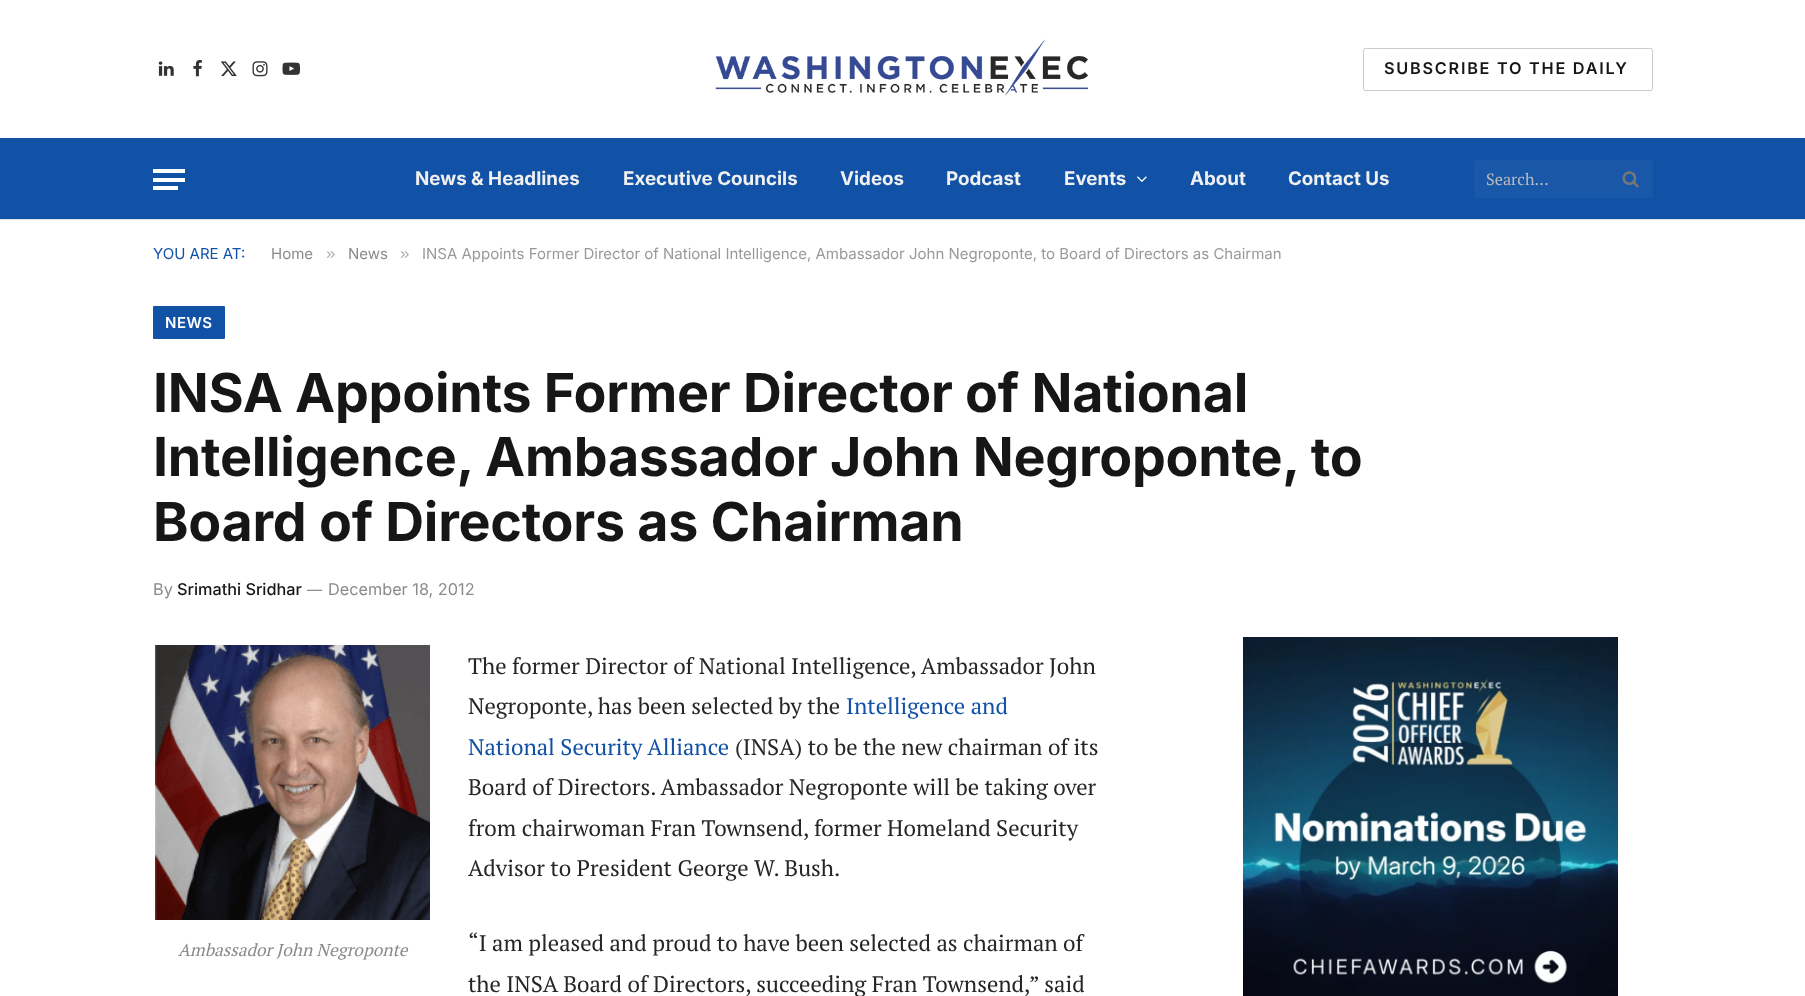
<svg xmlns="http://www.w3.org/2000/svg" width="1805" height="996">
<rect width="100%" height="100%" fill="#fff"/>
<image x="158" y="61" width="16" height="15" href="media/1.png"/>
<image x="193" y="60" width="9" height="17" href="media/2.png"/>
<image x="220" y="61" width="17" height="16" href="media/3.png"/>
<image x="252" y="61" width="16" height="16" href="media/4.png"/>
<image x="282" y="62" width="18" height="13" href="media/5.png"/>
<image x="715" y="39" width="373" height="57" href="media/6.png"/>
<rect x="1363.5" y="48.5" width="289" height="42" rx="2" fill="none" stroke="#00000033"/>
<text x="1384" y="74" style="font-family:Inter;font-size:16.25px;font-weight:600;letter-spacing:1.75px;fill:#161616">SUBSCRIBE TO THE DAILY</text>
<rect y="138" width="1805" height="81" fill="#1252a6"/>
<rect y="219" width="1805" height="1" fill="#e2e2e2"/>
<rect x="153" y="186" width="25" height="4" fill="#fff"/>
<rect x="153" y="169" width="32" height="4" fill="#fff"/>
<rect x="153" y="178" width="32" height="4" fill="#fff"/>
<text x="415" y="185" style="font-family:Inter;font-size:18.75px;font-weight:bold;fill:#f0f0f0">News &amp; Headlines</text>
<text x="623" y="185" style="font-family:Inter;font-size:18.75px;font-weight:bold;fill:#f0f0f0">Executive Councils</text>
<text x="840" y="185" style="font-family:Inter;font-size:18.75px;font-weight:bold;fill:#f0f0f0">Videos</text>
<text x="946" y="185" style="font-family:Inter;font-size:18.75px;font-weight:bold;fill:#f0f0f0">Podcast</text>
<text x="1064" y="185" style="font-family:Inter;font-size:18.75px;font-weight:bold;fill:#f0f0f0">Events</text>
<image x="1137" y="176" width="10" height="6" href="media/7.png"/>
<text x="1190" y="185" style="font-family:Inter;font-size:18.75px;font-weight:bold;fill:#f0f0f0">About</text>
<text x="1288" y="185" style="font-family:Inter;font-size:18.75px;font-weight:bold;fill:#f0f0f0">Contact Us</text>
<rect x="1474" y="160" width="179" height="38" rx="2.5" fill="#1957a9"/>
<text x="1486" y="185" style="font-family:PT Serif;font-size:16.25px;fill:#bbb">Search...</text>
<image x="1622" y="171" width="17" height="17" href="media/8.png"/>
<text x="153" y="259" style="font-family:Inter;font-size:15px;fill:#1252a6">YOU ARE AT:</text>
<text x="271" y="259" style="font-family:Inter;font-size:15px;fill:#8a8a8a">Home</text>
<text x="326" y="259" style="font-family:Liberation Sans;font-size:17px;fill:#adadad">»</text>
<text x="348" y="259" style="font-family:Inter;font-size:15px;fill:#8a8a8a">News</text>
<text x="400" y="259" style="font-family:Liberation Sans;font-size:17px;fill:#adadad">»</text>
<text x="422" y="259" style="font-family:Inter;font-size:15px;fill:#999">INSA Appoints Former Director of National Intelligence, Ambassador John Negroponte, to Board of Directors as Chairman</text>
<rect x="153" y="306" width="72" height="33" rx="1" fill="#1252a6"/>
<text x="165" y="328" style="font-family:Inter;font-size:15px;font-weight:600;letter-spacing:0.5px;fill:#fff">NEWS</text>
<text x="153" y="412" style="font-family:Inter;font-size:53.75px;font-weight:bold;letter-spacing:-0.25px;fill:#161616">INSA Appoints Former Director of National</text>
<text x="153" y="476" style="font-family:Inter;font-size:53.75px;font-weight:bold;letter-spacing:-0.25px;fill:#161616">Intelligence, Ambassador John Negroponte, to</text>
<text x="153" y="541" style="font-family:Inter;font-size:53.75px;font-weight:bold;letter-spacing:-0.25px;fill:#161616">Board of Directors as Chairman</text>
<text x="153" y="595" style="font-family:Inter;font-size:16.25px;fill:#8a8a8a">By</text>
<text x="177" y="595" style="font-family:Inter;font-size:16.25px;font-weight:500;fill:#161616">Srimathi Sridhar</text>
<text x="307" y="595" style="font-family:Inter;font-size:15px;fill:#8a8a8a">—</text>
<text x="328" y="595" style="font-family:Inter;font-size:16.25px;fill:#8a8a8a">December 18, 2012</text>
<text x="468" y="674" style="font-family:PT Serif;font-size:22.5px;fill:#262626">The former Director of National Intelligence, Ambassador John</text>
<text x="468" y="714" style="font-family:PT Serif;font-size:22.5px;fill:#262626">Negroponte, has been selected by the</text>
<text x="846" y="714" style="font-family:PT Serif;font-size:22.5px;fill:#1252a6">Intelligence and</text>
<text x="468" y="755" style="font-family:PT Serif;font-size:22.5px;fill:#1252a6">National Security Alliance</text>
<text x="735" y="755" style="font-family:PT Serif;font-size:22.5px;fill:#262626">(INSA) to be the new chairman of its</text>
<text x="468" y="795" style="font-family:PT Serif;font-size:22.5px;fill:#262626">Board of Directors. Ambassador Negroponte will be taking over</text>
<text x="468" y="836" style="font-family:PT Serif;font-size:22.5px;fill:#262626">from chairwoman Fran Townsend, former Homeland Security</text>
<text x="468" y="876" style="font-family:PT Serif;font-size:22.5px;fill:#262626">Advisor to President George W. Bush.</text>
<image x="155" y="645" width="275" height="275" href="media/9.png"/>
<text x="178" y="956" style="font-family:PT Serif;font-size:17.25px;font-style:italic;fill:#8a8a8a">Ambassador John Negroponte</text>
<text x="468" y="951" style="font-family:PT Serif;font-size:22.5px;fill:#262626">“I am pleased and proud to have been selected as chairman of</text>
<text x="468" y="992" style="font-family:PT Serif;font-size:22.5px;fill:#262626">the INSA Board of Directors, succeeding Fran Townsend,” said</text>
<image x="1243" y="637" width="375" height="359" href="media/10.png"/>
</svg>
